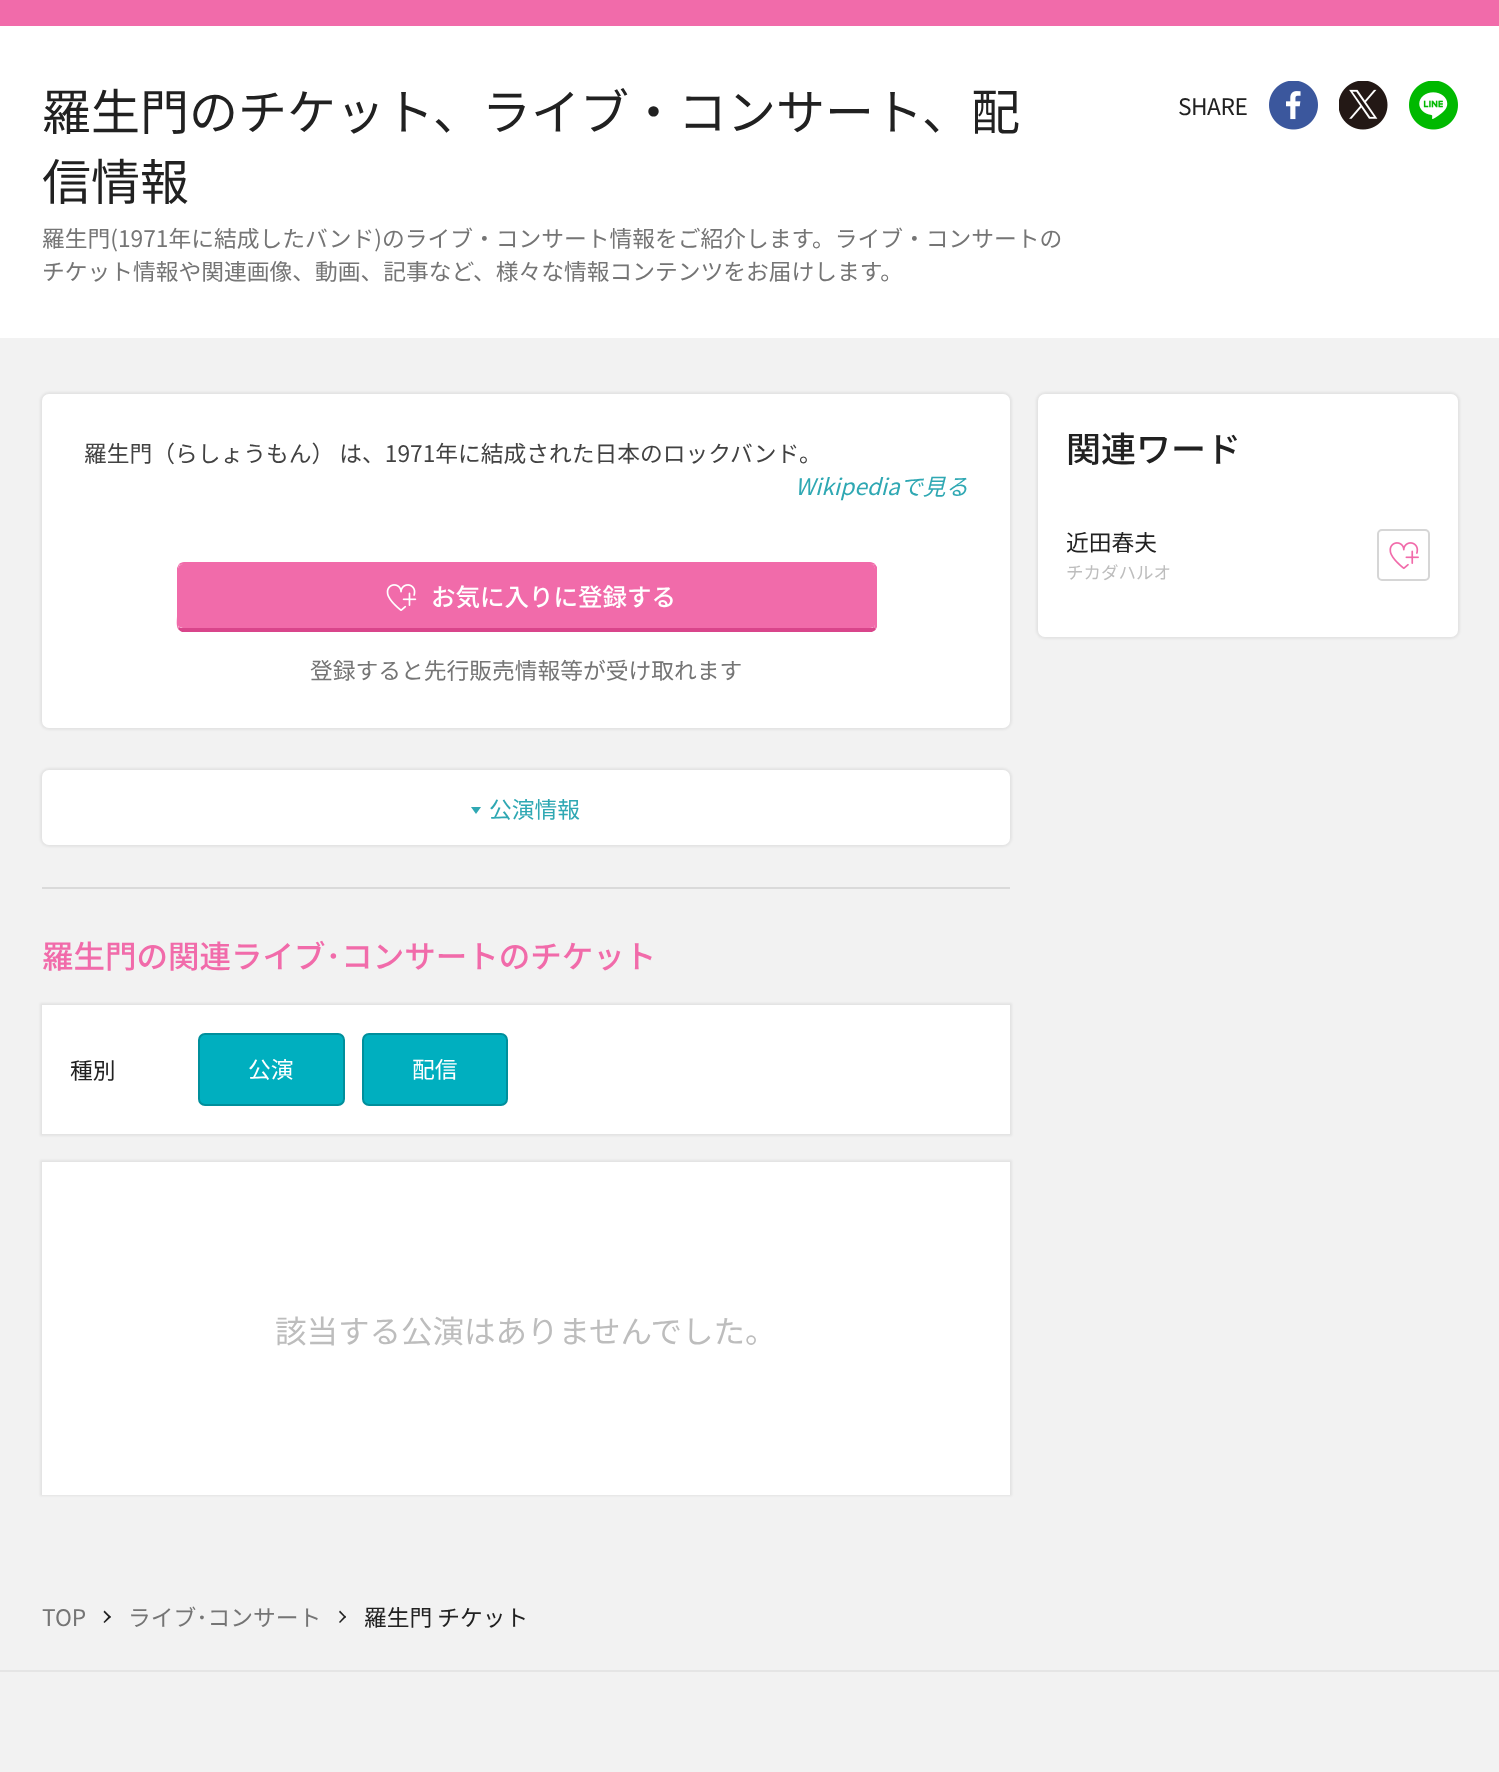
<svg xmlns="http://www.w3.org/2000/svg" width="1499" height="1772">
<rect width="100%" height="100%" fill="#f2f2f2"/>
<rect width="1499" height="26" fill="#f16baa"/>
<rect y="26" width="1499" height="312" fill="#fff"/>
<text x="42" y="130" style="font-family:Noto Sans JP;font-size:49px;fill:#212121">羅生門のチケット、ライブ・コンサート、配</text>
<text x="42" y="200" style="font-family:Noto Sans JP;font-size:49px;fill:#212121">信情報</text>
<text x="42" y="247" style="font-family:Noto Sans JP;font-size:22.75px;fill:#757575">羅生門(1971年に結成したバンド)のライブ・コンサート情報をご紹介します。ライブ・コンサートの</text>
<text x="42" y="280" style="font-family:Noto Sans JP;font-size:22.75px;fill:#757575">チケット情報や関連画像、動画、記事など、様々な情報コンテンツをお届けします。</text>
<text x="1178" y="115" style="font-family:Noto Sans JP;font-size:22.75px;letter-spacing:-0.5px;fill:#212121">SHARE</text>
<image x="1269" y="81" width="49" height="49" href="media/1.png"/>
<image x="1339" y="81" width="49" height="49" href="media/2.png"/>
<image x="1409" y="81" width="49" height="49" href="media/3.png"/>
<rect x="40" y="392" width="972" height="338" rx="9" fill="#0000000f" filter="blur(1px)"/>
<rect x="42" y="394" width="968" height="334" rx="7" fill="#fff"/>
<text x="84" y="462" style="font-family:Noto Sans JP;font-size:22.75px;fill:#424242">羅生門（らしょうもん） は、1971年に結成された日本のロックバンド。</text>
<text x="795" y="495" style="font-family:Noto Sans JP;font-size:22.75px;font-style:italic;fill:#2fa8b3">Wikipediaで見る</text>
<path d="M184 564h686c3 0 5 2 5 5v56c0 2-2 3-5 3h-686c-3 0-6-1-6-3v-56c0-3 3-5 6-5z" fill="#f16baa"/>
<path d="M184 562c-2 0-4 1-5 2l1 1l4-1h686l3 1l2-1c-1-1-3-2-5-2z" fill="#f16baa"/>
<path d="M875 564l2 3v60l-1 2l-2-2l1-2v-57l-2-3z" fill="#f16baa"/>
<path d="M182 632c-2-1-3-2-4-3l1-2c1 1 3 1 5 1h686c2 0 3 0 4-1l2 2c-1 2-3 2-4 3z" fill="#d9458b"/>
<path d="M179 564l-2 4v48c0 3-1 9 1 13l1-2c-1-1-1-1-1-2v-56c0-2 1-3 2-4z" fill="#f16baa"/>
<image x="386" y="584" width="31" height="27" href="media/4.png"/>
<text x="431" y="606" style="font-family:Noto Sans JP;font-size:24.5px;font-weight:500;fill:#fff">お気に入りに登録する</text>
<text x="310" y="679" style="font-family:Noto Sans JP;font-size:22.75px;fill:#757575">登録すると先行販売情報等が受け取れます</text>
<rect x="40" y="768" width="972" height="79" rx="9" fill="#0000000f" filter="blur(1px)"/>
<rect x="42" y="770" width="968" height="75" rx="7" fill="#fff"/>
<path d="M471 807h10l-5 7z" fill="#2fa8b3"/>
<text x="489" y="818" style="font-family:Noto Sans JP;font-size:22.75px;fill:#2fa8b3">公演情報</text>
<rect x="42" y="887" width="968" height="2" fill="#dadada"/>
<text x="42" y="968" style="font-family:Noto Sans JP;font-size:31.5px;font-weight:500;fill:#f16baa">羅生門の関連ライブ･コンサートのチケット</text>
<rect x="40" y="1003" width="972" height="133" fill="#0000000f" filter="blur(1px)"/>
<rect x="42" y="1005" width="968" height="129" fill="#fff"/>
<text x="70" y="1079" style="font-family:Noto Sans JP;font-size:22.75px;fill:#212121">種別</text>
<rect x="199" y="1034" width="145" height="71" rx="6" fill="#00afbf" stroke="#008f9c" stroke-width="2"/>
<text x="248" y="1078" style="font-family:Noto Sans JP;font-size:22.75px;fill:#fff">公演</text>
<rect x="363" y="1034" width="144" height="71" rx="6" fill="#00afbf" stroke="#008f9c" stroke-width="2"/>
<text x="412" y="1078" style="font-family:Noto Sans JP;font-size:22.75px;fill:#fff">配信</text>
<rect x="40" y="1160" width="972" height="336" fill="#0000000f" filter="blur(1px)"/>
<rect x="42" y="1162" width="968" height="333" fill="#fff"/>
<text x="275" y="1343" style="font-family:Noto Sans JP;font-size:31.5px;fill:#bdbdbd">該当する公演はありませんでした。</text>
<rect x="1036" y="392" width="424" height="247" rx="9" fill="#0000000f" filter="blur(1px)"/>
<rect x="1038" y="394" width="420" height="243" rx="7" fill="#fff"/>
<text x="1066" y="462" style="font-family:Noto Sans JP;font-size:35px;font-weight:500;fill:#212121">関連ワード</text>
<text x="1066" y="551" style="font-family:Noto Sans JP;font-size:22.75px;fill:#212121">近田春夫</text>
<text x="1066" y="579" style="font-family:Noto Sans JP;font-size:17.5px;fill:#bdbdbd">チカダハルオ</text>
<rect x="1378" y="530" width="51" height="50" rx="4" fill="none" stroke="#d6d6d6" stroke-width="2"/>
<image x="1389" y="542" width="30" height="28" href="media/5.png"/>
<text x="42" y="1626" style="font-family:Noto Sans JP;font-size:22.75px;fill:#757575">TOP</text>
<path d="M104.5 1610.5l6.5 6.5l-1.5 1l-6-6z" fill="#212121"/>
<path d="M109.5 1615.5l1.5 1.5l-6.5 6l-1-1z" fill="#212121"/>
<text x="128" y="1626" style="font-family:Noto Sans JP;font-size:22.75px;fill:#757575">ライブ･コンサート</text>
<path d="M340 1610.5l6 6.5l-1 1l-6-6z" fill="#212121"/>
<path d="M345 1615.5l1 1.5l-6 6l-1-1z" fill="#212121"/>
<text x="364" y="1626" style="font-family:Noto Sans JP;font-size:22.75px;fill:#212121">羅生門 チケット</text>
<rect y="1670" width="1499" height="2" fill="#e5e5e5"/>
</svg>
